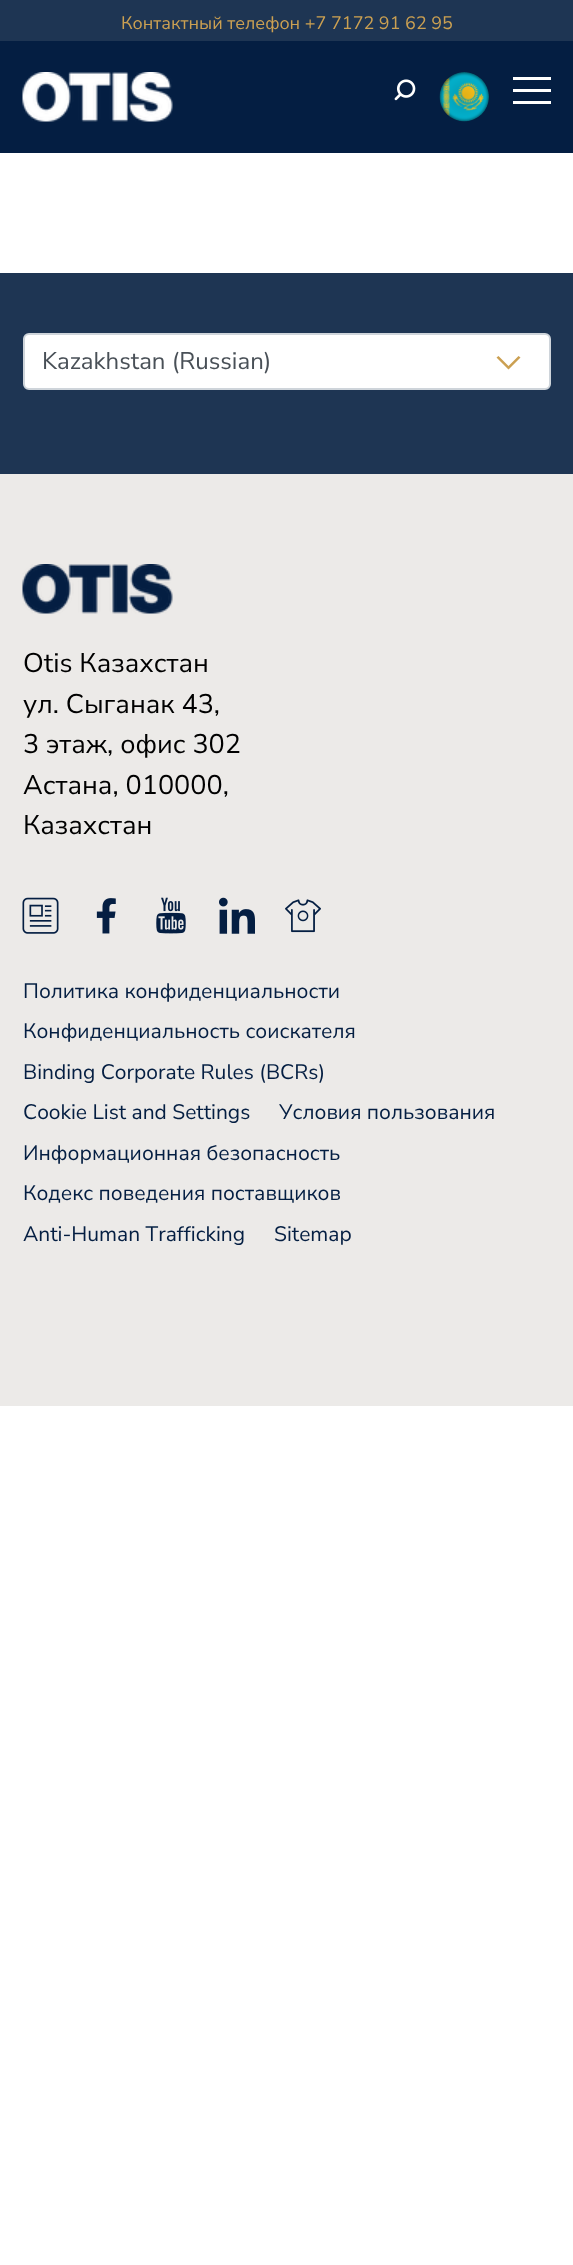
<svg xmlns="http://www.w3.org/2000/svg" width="573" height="2265">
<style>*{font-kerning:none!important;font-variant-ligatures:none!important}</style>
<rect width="100%" height="100%" fill="#fff"/>
<rect width="573" height="41" fill="#1e3553"/>
<text x="121" y="29" style="font-family:Nunito Sans;font-size:18px;fill:#cba052">Контактный телефон +7 7172 91 62 95</text>
<rect y="41" width="573" height="112" fill="#041e42"/>
<image x="22" y="72" width="151" height="50" href="media/1.png"/>
<image x="394" y="79" width="22" height="22" href="media/2.png"/>
<image x="439" y="72" width="50" height="50" href="media/3.png"/>
<rect x="513" y="89" width="38" height="3" fill="#fff"/>
<rect x="513" y="77" width="38" height="3" fill="#fff"/>
<rect x="513" y="101" width="38" height="3" fill="#fff"/>
<rect y="273" width="573" height="201" fill="#1e3553"/>
<rect x="24" y="334" width="526" height="55" rx="5" fill="#fff" stroke="#ced4da" stroke-width="2"/>
<text x="42" y="369" style="font-family:Nunito Sans;font-size:24px;fill:#495057">Kazakhstan (Russian) </text>
<path d="M508.5 369.5l-12-12l2-1.5l10 10l10-10l2 1.5z" fill="#cba052"/>
<rect y="474" width="573" height="932" fill="#eceae8"/>
<image x="22" y="564" width="151" height="50" href="media/4.png"/>
<text x="23" y="672" style="font-family:Nunito Sans;font-size:27px;fill:#000">Otis Казахстан</text>
<text x="23" y="713" style="font-family:Nunito Sans;font-size:27px;fill:#000">ул. Сыганак 43,</text>
<text x="23" y="753" style="font-family:Nunito Sans;font-size:27px;fill:#000">3 этаж, офис 302</text>
<text x="23" y="794" style="font-family:Nunito Sans;font-size:27px;fill:#000">Астана, 010000,</text>
<text x="23" y="834" style="font-family:Nunito Sans;font-size:27px;fill:#000">Казахстан</text>
<image x="22" y="897" width="37" height="37" href="media/5.png"/>
<image x="96" y="898" width="20" height="36" href="media/6.png"/>
<image x="156" y="897" width="30" height="37" href="media/7.png"/>
<image x="219" y="897" width="36" height="37" href="media/8.png"/>
<image x="285" y="899" width="36" height="34" href="media/9.png"/>
<text x="23" y="998" style="font-family:Nunito Sans;font-size:21px;fill:#041e42">Политика конфиденциальности</text>
<text x="23" y="1038" style="font-family:Nunito Sans;font-size:21px;fill:#041e42">Конфиденциальность соискателя</text>
<text x="23" y="1079" style="font-family:Nunito Sans;font-size:21px;fill:#041e42">Binding Corporate Rules (BCRs)</text>
<text x="23" y="1119" style="font-family:Nunito Sans;font-size:21px;fill:#041e42">Cookie List and Settings</text>
<text x="279" y="1119" style="font-family:Nunito Sans;font-size:21px;fill:#041e42">Условия пользования</text>
<text x="23" y="1160" style="font-family:Nunito Sans;font-size:21px;fill:#041e42">Информационная безопасность</text>
<text x="23" y="1200" style="font-family:Nunito Sans;font-size:21px;fill:#041e42">Кодекс поведения поставщиков</text>
<text x="23" y="1241" style="font-family:Nunito Sans;font-size:21px;fill:#041e42">Anti-Human Trafficking</text>
<text x="274" y="1241" style="font-family:Nunito Sans;font-size:21px;fill:#041e42">Sitemap</text>
</svg>
